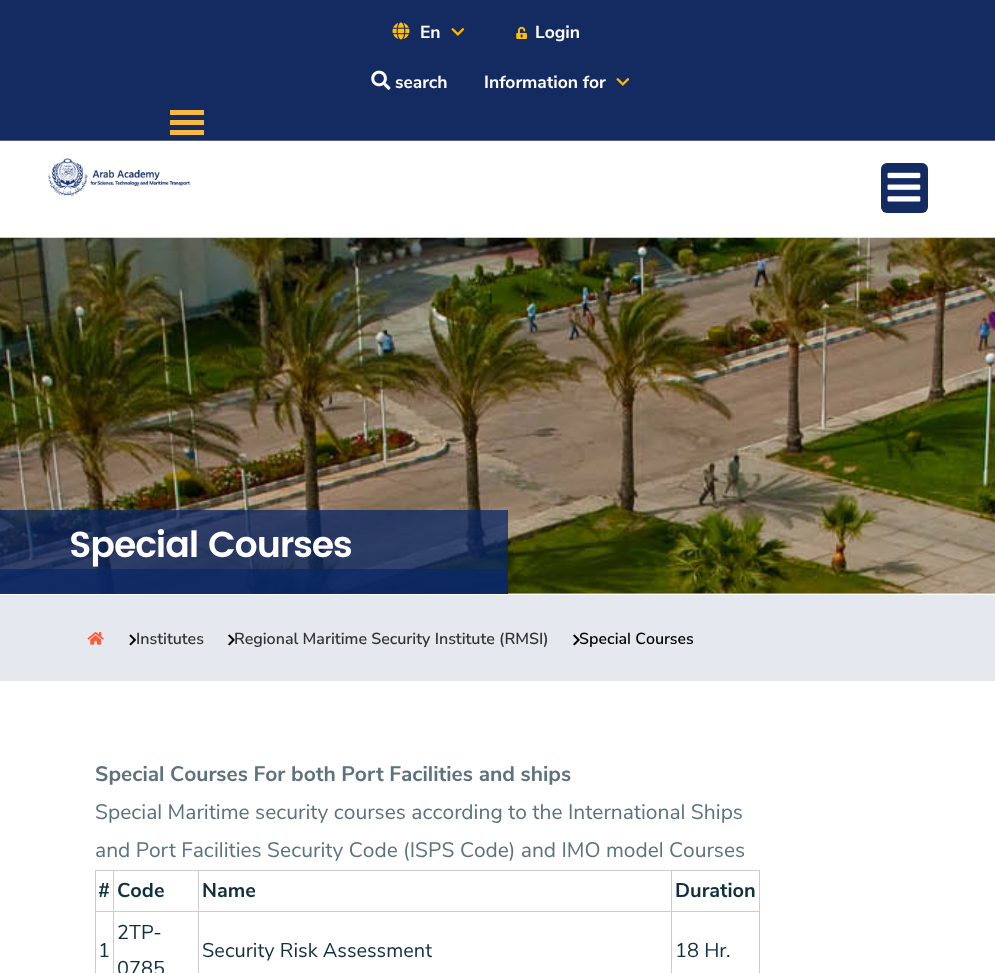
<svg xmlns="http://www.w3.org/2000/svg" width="995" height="973">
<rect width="100%" height="100%" fill="#fff"/>
<rect width="995" height="140" fill="#132b61"/>
<rect y="140" width="995" height="1" fill="#5c617f"/>
<image x="392" y="22" width="18" height="18" href="media/1.png"/>
<text x="420" y="38" style="font-family:Nunito Sans;font-size:17.5px;font-weight:bold;fill:#fff">En</text>
<image x="451" y="28" width="14" height="8" href="media/2.png"/>
<image x="516" y="26" width="11" height="13" href="media/3.png"/>
<text x="535" y="38" style="font-family:Nunito Sans;font-size:17.5px;font-weight:bold;fill:#fff">Login</text>
<image x="371" y="70" width="20" height="20" href="media/4.png"/>
<text x="395" y="88" style="font-family:Nunito Sans;font-size:17.5px;font-weight:bold;fill:#fff">search</text>
<text x="484" y="88" style="font-family:Nunito Sans;font-size:17.5px;font-weight:bold;fill:#fff">Information for</text>
<image x="616" y="78" width="14" height="8" href="media/2.png"/>
<rect x="170" y="110" width="34" height="5" fill="#f6ba42"/>
<rect x="170" y="120" width="34" height="5" fill="#f6ba42"/>
<rect x="170" y="130" width="34" height="5" fill="#f6ba42"/>
<image x="47" y="158" width="144" height="39" href="media/5.png"/>
<rect x="881" y="163" width="47" height="50" rx="6" fill="#132b61"/>
<image x="887" y="172" width="34" height="30" href="media/6.png"/>
<image x="0" y="237" width="995" height="357" href="media/7.png"/>
<rect y="510" width="508" height="84" fill="#092766bf"/>
<text x="69" y="557" style="font-family:Poppins;font-size:36px;font-weight:600;letter-spacing:-1.1px;fill:#fff">Special Courses</text>
<rect y="569" width="508" height="25" fill="#092766bf"/>
<rect y="595" width="995" height="86" fill="#e5e9ef"/>
<image x="87" y="632" width="17" height="13" href="media/8.png"/>
<image x="129" y="634" width="7" height="12" href="media/9.png"/>
<text x="136" y="644" style="font-family:Nunito Sans;font-size:16px;font-weight:600;fill:#333">Institutes</text>
<image x="228" y="634" width="7" height="12" href="media/10.png"/>
<text x="234" y="644" style="font-family:Nunito Sans;font-size:16px;font-weight:600;fill:#333">Regional Maritime Security Institute (RMSI)</text>
<image x="573" y="634" width="7" height="12" href="media/10.png"/>
<text x="579" y="644" style="font-family:'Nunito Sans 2';font-size:16px;font-weight:600;fill:#000">Special Courses</text>
<text x="95" y="781" style="font-family:Nunito Sans;font-size:21px;font-weight:bold;fill:#5c727d">Special Courses For both Port Facilities and ships</text>
<text x="95" y="819" style="font-family:Nunito Sans;font-size:21px;fill:#5c727d">Special Maritime security courses according to the International Ships</text>
<text x="95" y="857" style="font-family:Nunito Sans;font-size:21px;fill:#5c727d">and Port Facilities Security Code (ISPS Code) and IMO model Courses</text>
<rect x="671" y="870" width="89" height="1" fill="#ccc"/>
<rect x="671" y="911" width="89" height="1" fill="#ccc"/>
<rect x="671" y="911" width="1" height="62" fill="#ccc"/>
<rect x="198" y="911" width="475" height="1" fill="#ccc"/>
<rect x="671" y="870" width="1" height="43" fill="#ccc"/>
<rect x="198" y="870" width="475" height="1" fill="#ccc"/>
<rect x="198" y="911" width="1" height="62" fill="#ccc"/>
<rect x="113" y="911" width="86" height="1" fill="#ccc"/>
<rect x="198" y="870" width="1" height="43" fill="#ccc"/>
<rect x="113" y="870" width="86" height="1" fill="#ccc"/>
<rect x="113" y="911" width="1" height="62" fill="#ccc"/>
<rect x="95" y="911" width="19" height="1" fill="#ccc"/>
<rect x="113" y="870" width="1" height="43" fill="#ccc"/>
<rect x="95" y="870" width="19" height="1" fill="#ccc"/>
<rect x="95" y="911" width="1" height="62" fill="#ccc"/>
<rect x="95" y="870" width="1" height="43" fill="#ccc"/>
<text x="98" y="897" style="font-family:Nunito Sans;font-size:20px;font-weight:bold;fill:#103040">#</text>
<text x="117" y="897" style="font-family:Nunito Sans;font-size:20px;font-weight:bold;fill:#103040">Code</text>
<text x="202" y="897" style="font-family:Nunito Sans;font-size:20px;font-weight:bold;fill:#103040">Name</text>
<rect x="759" y="911" width="1" height="62" fill="#ccc"/>
<rect x="759" y="870" width="1" height="43" fill="#ccc"/>
<text x="675" y="897" style="font-family:Nunito Sans;font-size:20px;font-weight:bold;fill:#103040">Duration</text>
<text x="98" y="957" style="font-family:Nunito Sans;font-size:20px;fill:#103040">1</text>
<text x="117" y="939" style="font-family:Nunito Sans;font-size:20px;fill:#103040">2TP-</text>
<text x="117" y="975" style="font-family:Nunito Sans;font-size:20px;fill:#103040">0785</text>
<text x="202" y="957" style="font-family:Nunito Sans;font-size:20px;fill:#103040">Security Risk Assessment</text>
<text x="675" y="957" style="font-family:Nunito Sans;font-size:20px;fill:#103040">18 Hr.</text>
</svg>
